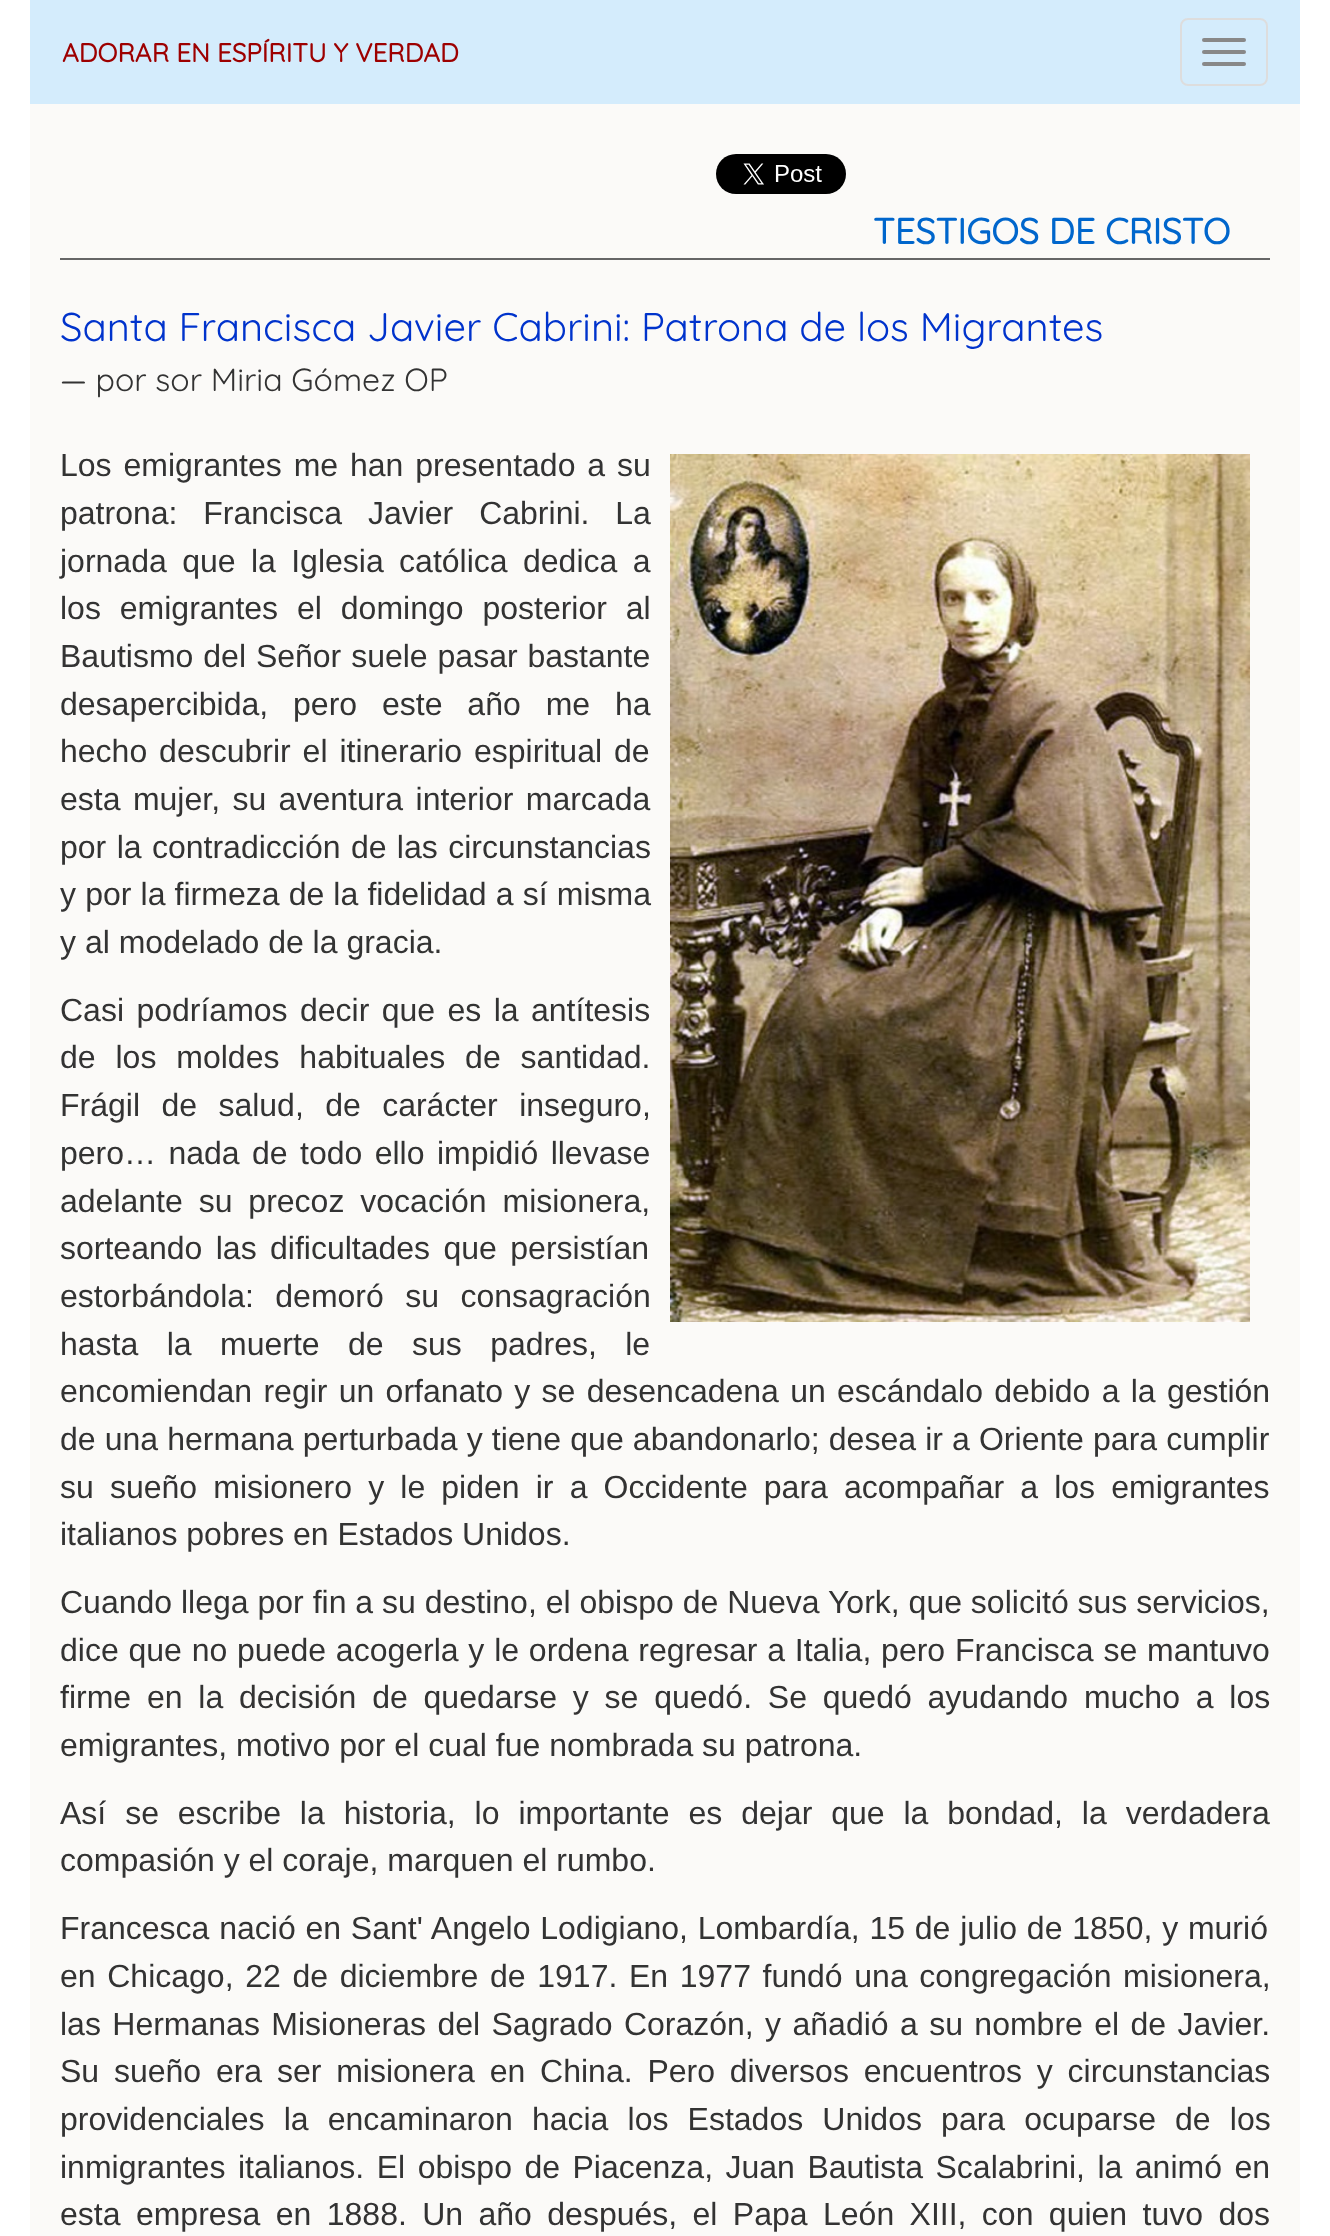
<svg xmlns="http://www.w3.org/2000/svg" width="1330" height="2236">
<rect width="100%" height="100%" fill="#fff"/>
<rect x="30" width="1270" height="104" fill="#d4ecfc"/>
<text x="62" y="62" style="font-family:Quicksand;font-size:26px;font-weight:bold;fill:#9d0000">ADORAR EN ESPÍRITU Y VERDAD</text>
<rect x="1181" y="19" width="86" height="66" rx="7" fill="none" stroke="#ddd" stroke-width="2"/>
<rect x="1202" y="38" width="44" height="4" rx="2" fill="#888"/>
<rect x="1202" y="50" width="44" height="4" rx="2" fill="#888"/>
<rect x="1202" y="62" width="44" height="4" rx="2" fill="#888"/>
<rect x="30" y="104" width="1270" height="2132" fill="#fbfaf8"/>
<image x="716" y="154" width="130" height="40" href="media/1.png"/>
<rect x="60" y="258" width="1210" height="2" fill="#666"/>
<text x="873" y="244" style="font-family:Quicksand;font-size:36px;font-weight:bold;fill:#06c">TESTIGOS DE CRISTO</text>
<text x="60" y="341" style="font-family:Quicksand;font-size:40px;fill:#03c">Santa Francisca Javier Cabrini: Patrona de los Migrantes</text>
<text x="60" y="391" style="font-family:Quicksand;font-size:32px;fill:#333">— por sor Miria Gómez OP</text>
<text x="60" y="476" word-spacing="3" style="font-family:Liberation Sans;font-size:32px;fill:#333">Los emigrantes me han presentado a su</text>
<image x="670" y="454" width="580" height="868" href="media/2.png"/>
<text x="60" y="524" word-spacing="17" style="font-family:Liberation Sans;font-size:32px;fill:#333">patrona: Francisca Javier Cabrini. La</text>
<text x="60" y="572" word-spacing="6.5" style="font-family:Liberation Sans;font-size:32px;fill:#333">jornada que la Iglesia católica dedica a</text>
<text x="60" y="619" word-spacing="10" style="font-family:Liberation Sans;font-size:32px;fill:#333">los emigrantes el domingo posterior al</text>
<text x="60" y="667" word-spacing="1" style="font-family:Liberation Sans;font-size:32px;fill:#333">Bautismo del Señor suele pasar bastante</text>
<text x="60" y="715" word-spacing="16" style="font-family:Liberation Sans;font-size:32px;fill:#333">desapercibida, pero este año me ha</text>
<text x="60" y="762" word-spacing="3" style="font-family:Liberation Sans;font-size:32px;fill:#333">hecho descubrir el itinerario espiritual de</text>
<text x="60" y="810" word-spacing="3.5" style="font-family:Liberation Sans;font-size:32px;fill:#333">esta mujer, su aventura interior marcada</text>
<text x="60" y="858" word-spacing="1.5" style="font-family:Liberation Sans;font-size:32px;fill:#333">por la contradicción de las circunstancias</text>
<text x="60" y="905" word-spacing="0.25" style="font-family:Liberation Sans;font-size:32px;fill:#333">y por la firmeza de la fidelidad a sí misma</text>
<text x="60" y="953" style="font-family:Liberation Sans;font-size:32px;fill:#333">y al modelado de la gracia.</text>
<text x="60" y="1021" word-spacing="3.5" style="font-family:Liberation Sans;font-size:32px;fill:#333">Casi podríamos decir que es la antítesis</text>
<text x="60" y="1068" word-spacing="11" style="font-family:Liberation Sans;font-size:32px;fill:#333">de los moldes habituales de santidad.</text>
<text x="60" y="1116" word-spacing="12.5" style="font-family:Liberation Sans;font-size:32px;fill:#333">Frágil de salud, de carácter inseguro,</text>
<text x="60" y="1164" word-spacing="3.5" style="font-family:Liberation Sans;font-size:32px;fill:#333">pero… nada de todo ello impidió llevase</text>
<text x="60" y="1212" word-spacing="7" style="font-family:Liberation Sans;font-size:32px;fill:#333">adelante su precoz vocación misionera,</text>
<text x="60" y="1259" word-spacing="4.5" style="font-family:Liberation Sans;font-size:32px;fill:#333">sorteando las dificultades que persistían</text>
<text x="60" y="1307" word-spacing="12.5" style="font-family:Liberation Sans;font-size:32px;fill:#333">estorbándola: demoró su consagración</text>
<text x="60" y="1355" word-spacing="19.5" style="font-family:Liberation Sans;font-size:32px;fill:#333">hasta la muerte de sus padres, le</text>
<text x="60" y="1402" word-spacing="2.4" style="font-family:Liberation Sans;font-size:32px;fill:#333">encomiendan regir un orfanato y se desencadena un escándalo debido a la gestión</text>
<text x="60" y="1450" word-spacing="0.25" style="font-family:Liberation Sans;font-size:32px;fill:#333">de una hermana perturbada y tiene que abandonarlo; desea ir a Oriente para cumplir</text>
<text x="60" y="1498" word-spacing="7.25" style="font-family:Liberation Sans;font-size:32px;fill:#333">su sueño misionero y le piden ir a Occidente para acompañar a los emigrantes</text>
<text x="60" y="1545" style="font-family:Liberation Sans;font-size:32px;fill:#333">italianos pobres en Estados Unidos.</text>
<text x="60" y="1613" style="font-family:Liberation Sans;font-size:32px;fill:#333">Cuando llega por fin a su destino, el obispo de Nueva York, que solicitó sus servicios,</text>
<text x="60" y="1661" word-spacing="0.9" style="font-family:Liberation Sans;font-size:32px;fill:#333">dice que no puede acogerla y le ordena regresar a Italia, pero Francisca se mantuvo</text>
<text x="60" y="1708" word-spacing="6.9" style="font-family:Liberation Sans;font-size:32px;fill:#333">firme en la decisión de quedarse y se quedó. Se quedó ayudando mucho a los</text>
<text x="60" y="1756" style="font-family:Liberation Sans;font-size:32px;fill:#333">emigrantes, motivo por el cual fue nombrada su patrona.</text>
<text x="60" y="1824" word-spacing="10" style="font-family:Liberation Sans;font-size:32px;fill:#333">Así se escribe la historia, lo importante es dejar que la bondad, la verdadera</text>
<text x="60" y="1871" style="font-family:Liberation Sans;font-size:32px;fill:#333">compasión y el coraje, marquen el rumbo.</text>
<text x="60" y="1939" word-spacing="0.9" style="font-family:Liberation Sans;font-size:32px;fill:#333">Francesca nació en Sant' Angelo Lodigiano, Lombardía, 15 de julio de 1850, y murió</text>
<text x="60" y="1987" word-spacing="2.75" style="font-family:Liberation Sans;font-size:32px;fill:#333">en Chicago, 22 de diciembre de 1917. En 1977 fundó una congregación misionera,</text>
<text x="60" y="2035" word-spacing="2.5" style="font-family:Liberation Sans;font-size:32px;fill:#333">las Hermanas Misioneras del Sagrado Corazón, y añadió a su nombre el de Javier.</text>
<text x="60" y="2082" word-spacing="5.9" style="font-family:Liberation Sans;font-size:32px;fill:#333">Su sueño era ser misionera en China. Pero diversos encuentros y circunstancias</text>
<text x="60" y="2130" word-spacing="10.25" style="font-family:Liberation Sans;font-size:32px;fill:#333">providenciales la encaminaron hacia los Estados Unidos para ocuparse de los</text>
<text x="60" y="2178" word-spacing="3.6" style="font-family:Liberation Sans;font-size:32px;fill:#333">inmigrantes italianos. El obispo de Piacenza, Juan Bautista Scalabrini, la animó en</text>
<text x="60" y="2225" word-spacing="6.5" style="font-family:Liberation Sans;font-size:32px;fill:#333">esta empresa en 1888. Un año después, el Papa León XIII, con quien tuvo dos</text>
</svg>
